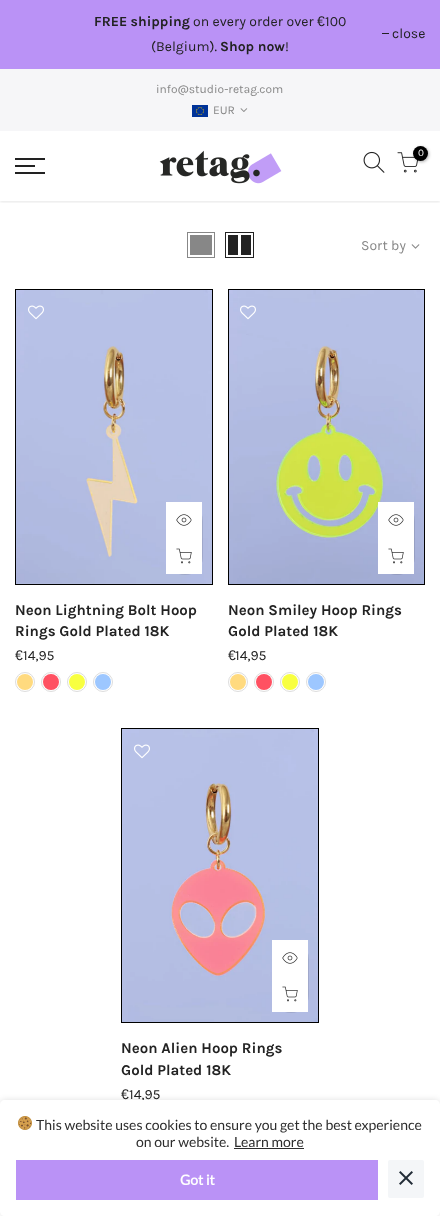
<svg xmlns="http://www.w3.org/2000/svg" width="440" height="1216">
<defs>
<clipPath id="clip1"><rect x="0" y="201" width="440" height="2"/></clipPath>
<clipPath id="clip2"><path d="M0 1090h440v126h-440zm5 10h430c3 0 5 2 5 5v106c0 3-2 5-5 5h-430c-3 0-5-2-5-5v-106c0-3 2-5 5-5z" clip-rule="evenodd"/></clipPath>
</defs>
<rect width="100%" height="100%" fill="#fff"/>
<rect width="440" height="69" fill="#ba92f6"/>
<text x="94" y="26" style="font-family:Karla;font-size:14px;font-weight:bold;fill:#222">FREE shipping</text>
<text x="193" y="26" style="font-family:Karla;font-size:14px;fill:#222">on every order over</text>
<text x="317" y="26" style="font-family:Liberation Sans;font-size:14px;fill:#222">€</text>
<text x="325" y="26" style="font-family:Karla;font-size:14px;fill:#222">100</text>
<text x="151" y="51" style="font-family:Karla;font-size:14px;fill:#222">(Belgium).</text>
<text x="220" y="51" style="font-family:Karla;font-size:14px;font-weight:bold;fill:#222">Shop now</text>
<text x="285" y="51" style="font-family:Karla;font-size:14px;fill:#222">!</text>
<rect x="382" y="33" width="7" height="1" fill="#222"/>
<text x="392" y="38" style="font-family:Karla;font-size:14px;fill:#222">close</text>
<rect y="69" width="440" height="62" fill="#f6f6f8"/>
<text x="156" y="93" style="font-family:Karla;font-size:12px;fill:#878787">info@studio-retag.com</text>
<image x="192" y="105" width="16" height="12" href="media/1.png"/>
<text x="213" y="114" style="font-family:Karla;font-size:12px;fill:#878787">EUR</text>
<image x="240" y="108" width="8" height="4" href="media/2.png"/>
<g clip-path="url(#clip1)">
<rect y="132" width="440" height="70" fill="#0000001a" filter="blur(1.5px)"/>
</g>
<rect x="15" y="158" width="30" height="2" fill="#222"/>
<rect x="15" y="165" width="20" height="2" fill="#222"/>
<rect x="15" y="172" width="30" height="2" fill="#222"/>
<image x="159" y="150" width="123" height="34" href="media/3.png"/>
<image x="363" y="151" width="22" height="22" href="media/4.png"/>
<image x="397" y="152" width="21" height="21" href="media/5.png"/>
<rect x="414" y="147" width="15" height="15" rx="7.5" fill="#0000004d" filter="blur(1.5px)"/>
<circle cx="420.5" cy="153.5" r="7.5" fill="#000"/>
<text x="418" y="156" style="font-family:Karla;font-size:10px;fill:#fff">0</text>
<rect x="187.5" y="232.5" width="27" height="25" fill="none" stroke="#878787"/>
<rect x="190" y="235" width="22" height="20" fill="#878787"/>
<rect x="225.5" y="232.5" width="28" height="25" fill="none" stroke="#222"/>
<rect x="241" y="235" width="10" height="20" fill="#222"/>
<rect x="228" y="235" width="10" height="20" fill="#222"/>
<text x="361" y="250" style="font-family:Karla;font-size:14px;fill:#878787">Sort by</text>
<image x="411" y="244" width="9" height="5" href="media/6.png"/>
<rect x="15.5" y="289.5" width="197" height="295" fill="none" stroke="#000"/>
<image x="16" y="290" width="196" height="294" href="media/7.png"/>
<image x="28" y="305" width="16" height="15" href="media/8.png"/>
<rect x="167" y="503" width="36" height="72" rx="18" fill="#0000001a" filter="blur(0.5px)"/>
<rect x="166" y="502" width="36" height="72" fill="#fff"/>
<image x="176" y="514" width="16" height="12" href="media/9.png"/>
<path d="M178 514c2-2 5-3 7.5-2.5c10 2 8.5 17-1.5 17c-2 0-4.5-1-6-2.5" fill="none" stroke="#fff"/>
<image x="176" y="548" width="16" height="16" href="media/10.png"/>
<path d="M178 562c-3.5-3.5-3.5-8.5 0-12" fill="none" stroke="#fff"/>
<text x="15" y="615" style="font-family:Karla;font-size:15px;font-weight:bold;fill:#222">Neon Lightning Bolt Hoop</text>
<text x="15" y="636" style="font-family:Karla;font-size:15px;font-weight:bold;fill:#222">Rings Gold Plated 18K</text>
<text x="15" y="660" style="font-family:Liberation Sans;font-size:14px;fill:#222">€</text>
<text x="23" y="660" style="font-family:Karla;font-size:14px;fill:#222">14,95</text>
<circle cx="25" cy="682" r="9.5" fill="none" stroke="#ddd"/>
<circle cx="25" cy="682" r="8" fill="#ffda7f"/>
<circle cx="51" cy="682" r="9.5" fill="none" stroke="#ddd"/>
<circle cx="51" cy="682" r="8" fill="#ff5162"/>
<circle cx="77" cy="682" r="9.5" fill="none" stroke="#ddd"/>
<circle cx="77" cy="682" r="8" fill="#f8ff40"/>
<circle cx="103" cy="682" r="9.5" fill="none" stroke="#ddd"/>
<circle cx="103" cy="682" r="8" fill="#9dc7ff"/>
<rect x="228.5" y="289.5" width="196" height="295" fill="none" stroke="#000"/>
<image x="229" y="290" width="195" height="294" href="media/11.png"/>
<image x="240" y="305" width="16" height="15" href="media/12.png"/>
<rect x="379" y="503" width="36" height="72" rx="18" fill="#0000001a" filter="blur(0.5px)"/>
<rect x="378" y="502" width="36" height="72" fill="#fff"/>
<image x="388" y="514" width="16" height="12" href="media/9.png"/>
<path d="M390 514c2-2 5-3 7.5-2.5c10 2 8.5 17-1.5 17c-2 0-4.5-1-6-2.5" fill="none" stroke="#fff"/>
<image x="388" y="548" width="16" height="16" href="media/10.png"/>
<path d="M390 562c-3.5-3.5-3.5-8.5 0-12" fill="none" stroke="#fff"/>
<text x="228" y="615" style="font-family:Karla;font-size:15px;font-weight:bold;fill:#222">Neon Smiley Hoop Rings</text>
<text x="228" y="636" style="font-family:Karla;font-size:15px;font-weight:bold;fill:#222">Gold Plated 18K</text>
<text x="228" y="660" style="font-family:Liberation Sans;font-size:14px;fill:#222">€</text>
<text x="235" y="660" style="font-family:Karla;font-size:14px;fill:#222">14,95</text>
<circle cx="238" cy="682" r="9.5" fill="none" stroke="#ddd"/>
<circle cx="238" cy="682" r="8" fill="#ffda7f"/>
<circle cx="264" cy="682" r="9.5" fill="none" stroke="#ddd"/>
<circle cx="264" cy="682" r="8" fill="#ff5162"/>
<circle cx="290" cy="682" r="9.5" fill="none" stroke="#ddd"/>
<circle cx="290" cy="682" r="8" fill="#f8ff40"/>
<circle cx="316" cy="682" r="9.5" fill="none" stroke="#ddd"/>
<circle cx="316" cy="682" r="8" fill="#9dc7ff"/>
<rect x="121.5" y="728.5" width="197" height="294" fill="none" stroke="#000"/>
<image x="122" y="729" width="196" height="293" href="media/13.png"/>
<image x="134" y="744" width="16" height="15" href="media/8.png"/>
<rect x="273" y="941" width="36" height="72" rx="18" fill="#0000001a" filter="blur(0.5px)"/>
<rect x="272" y="940" width="36" height="72" fill="#fff"/>
<image x="282" y="952" width="16" height="12" href="media/9.png"/>
<path d="M284 952c2-2 5-3 7.5-2.5c10 2 8.5 17-1.5 17c-2 0-4.5-1-6-2.5" fill="none" stroke="#fff"/>
<image x="282" y="986" width="16" height="16" href="media/10.png"/>
<path d="M284 1000c-3.5-3.5-3.5-8.5 0-12" fill="none" stroke="#fff"/>
<text x="121" y="1053" style="font-family:Karla;font-size:15px;font-weight:bold;fill:#222">Neon Alien Hoop Rings</text>
<text x="121" y="1075" style="font-family:Karla;font-size:15px;font-weight:bold;fill:#222">Gold Plated 18K</text>
<text x="121" y="1099" style="font-family:Liberation Sans;font-size:14px;fill:#222">€</text>
<text x="129" y="1099" style="font-family:Karla;font-size:14px;fill:#222">14,95</text>
<rect x="142" y="1100" width="2" height="1" fill="#fff"/>
<g clip-path="url(#clip2)">
<rect y="1100" width="440" height="116" rx="5" fill="#0000001f" filter="blur(3px)"/>
</g>
<image x="18" y="1116" width="14" height="14" href="media/14.png"/>
<text x="36" y="1130" style="font-family:Lato;font-size:14px;fill:#2d2d2d">This website uses cookies to ensure you get the best experience</text>
<text x="136" y="1147" style="font-family:Lato;font-size:14px;fill:#2d2d2d">on our website.</text>
<text x="234" y="1147" style="font-family:Lato;font-size:14px;fill:#2d2d2d">Learn more</text>
<rect x="234" y="1148" width="70" height="1" fill="#2d2d2d"/>
<rect x="16" y="1160" width="362" height="40" fill="#ba92f6"/>
<text x="180" y="1185" style="font-family:Lato;font-size:14px;font-weight:bold;fill:#fff">Got it</text>
<rect x="388" y="1160" width="36" height="38" rx="2" fill="#f4f6f8"/>
<image x="399" y="1171" width="14" height="14" href="media/15.png"/>
</svg>
